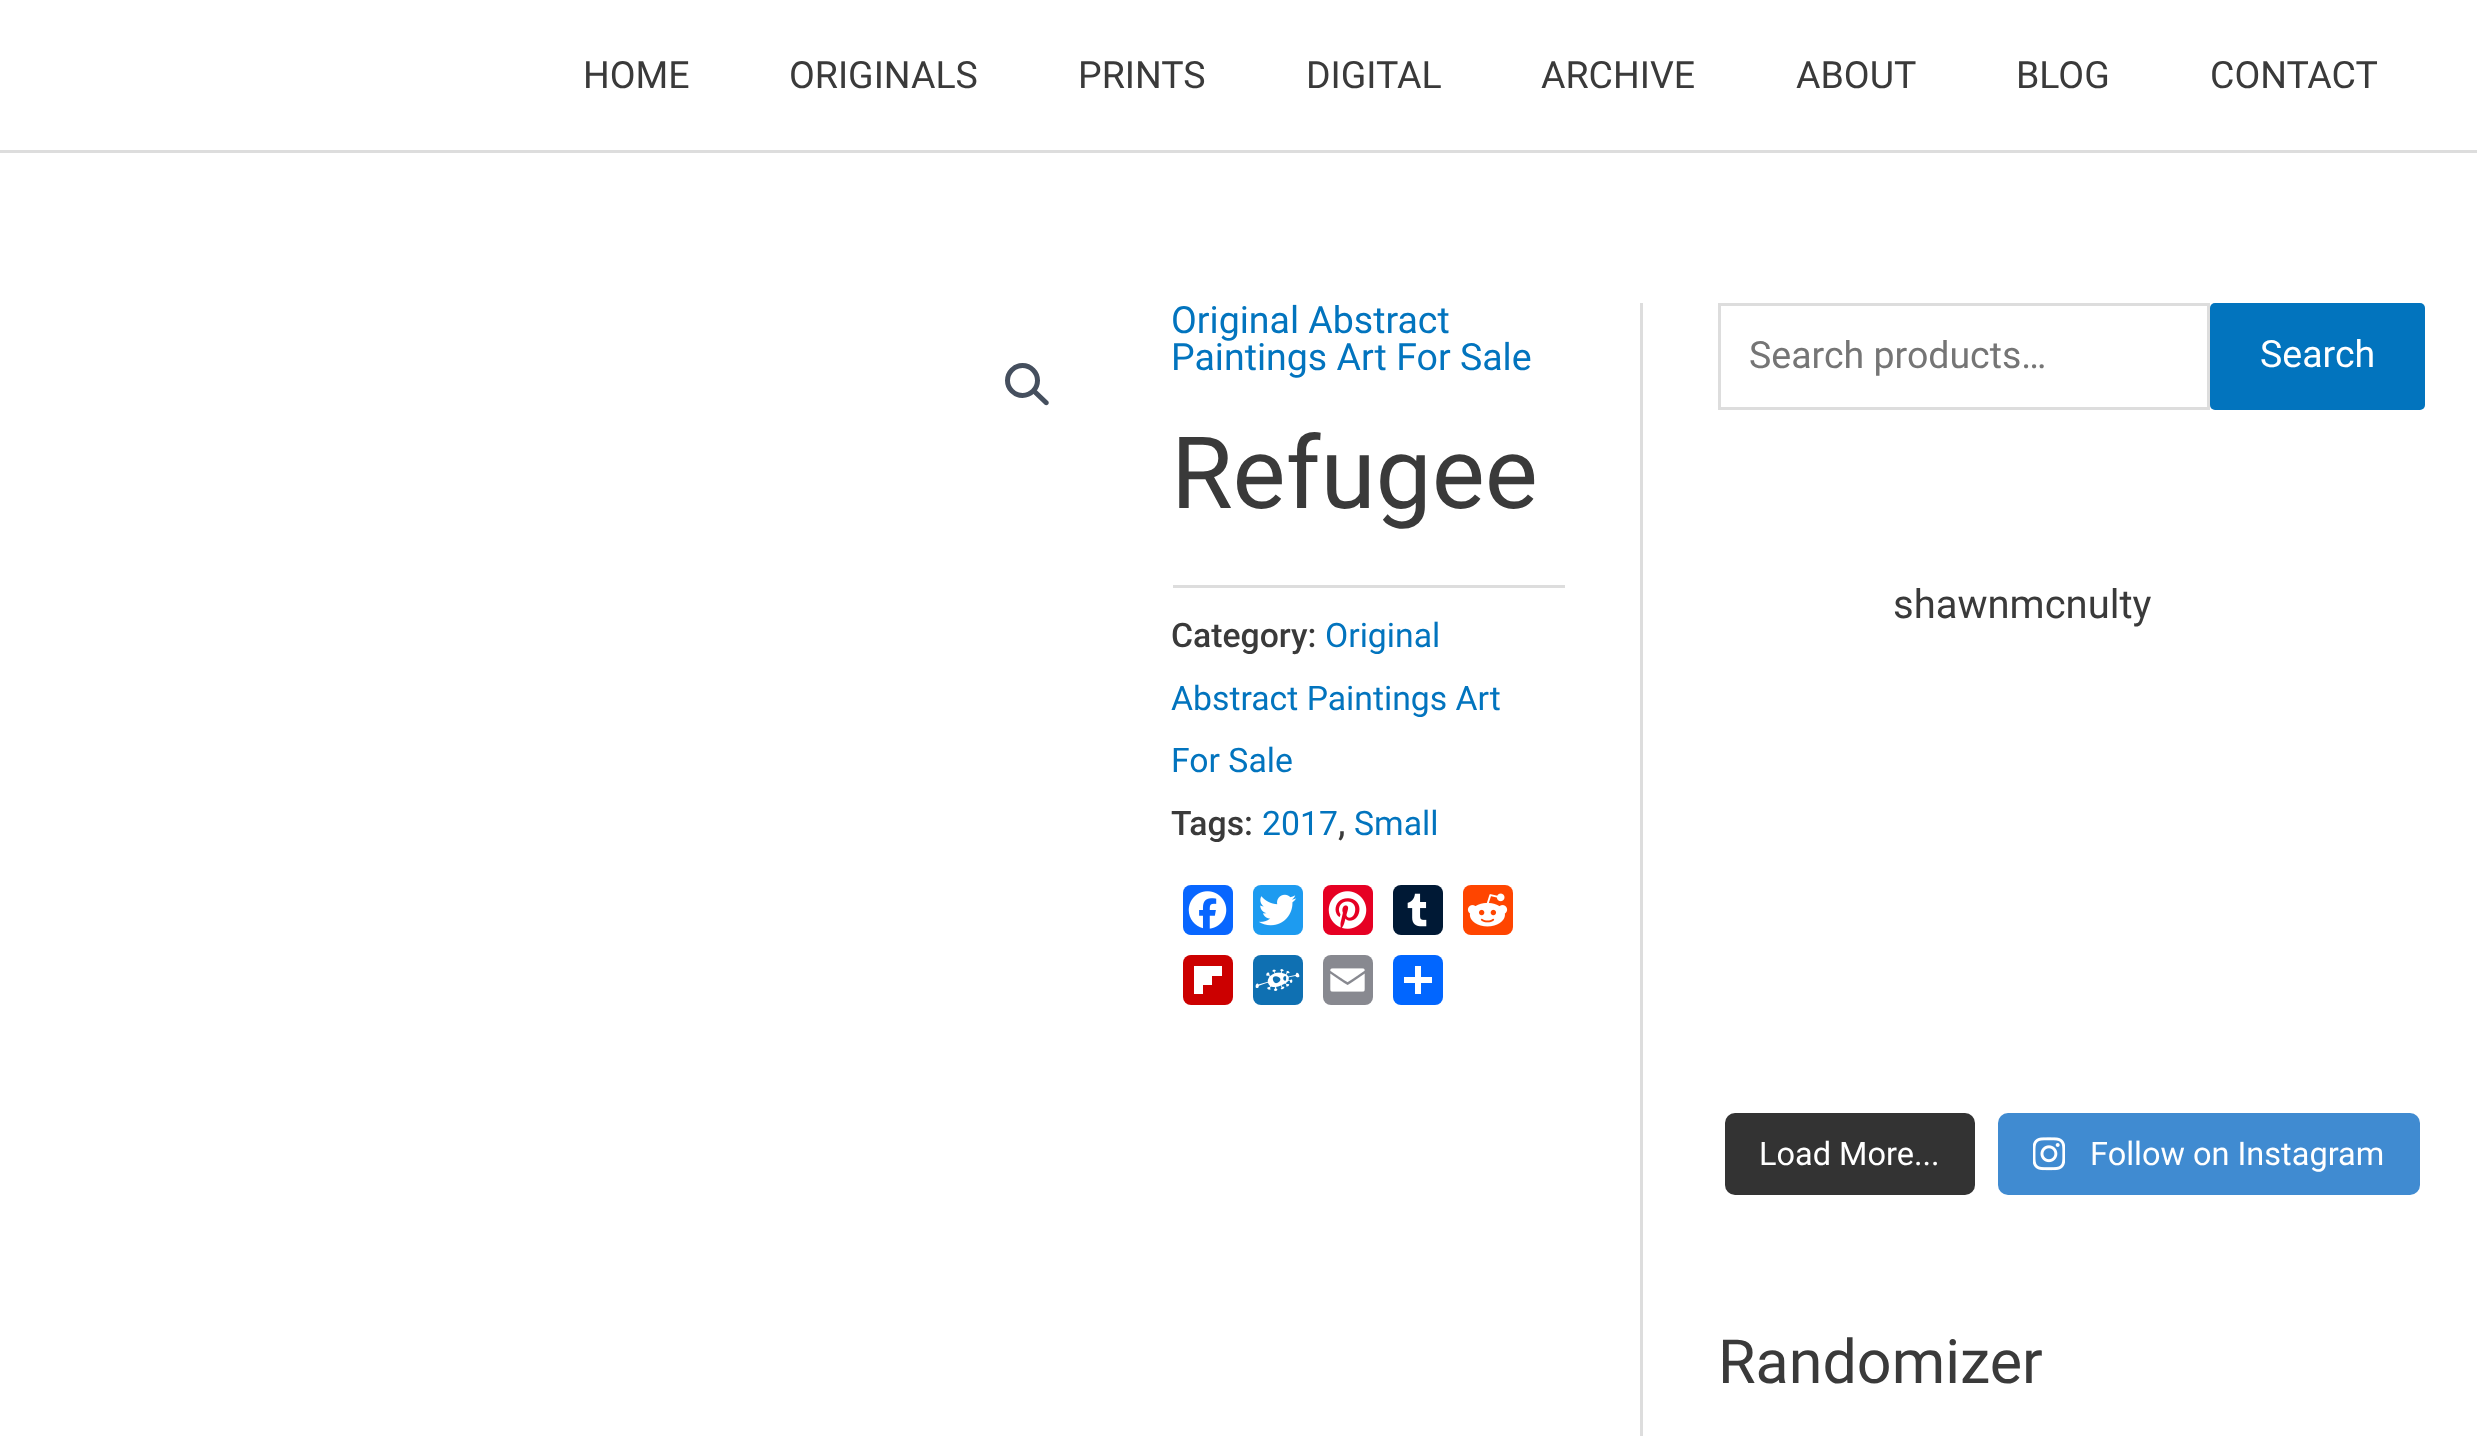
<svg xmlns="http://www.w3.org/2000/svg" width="2477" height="1436">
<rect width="100%" height="100%" fill="#fff"/>
<rect y="150" width="2477" height="3" fill="#ddd"/>
<text x="583" y="88" style="font-family:Roboto;font-size:37.5px;fill:#3a3a3a">HOME</text>
<text x="789" y="88" style="font-family:Roboto;font-size:37.5px;fill:#3a3a3a">ORIGINALS</text>
<text x="1078" y="88" style="font-family:Roboto;font-size:37.5px;fill:#3a3a3a">PRINTS</text>
<text x="1306" y="88" style="font-family:Roboto;font-size:37.5px;fill:#3a3a3a">DIGITAL</text>
<text x="1541" y="88" style="font-family:Roboto;font-size:37.5px;fill:#3a3a3a">ARCHIVE</text>
<text x="1796" y="88" style="font-family:Roboto;font-size:37.5px;fill:#3a3a3a">ABOUT</text>
<text x="2016" y="88" style="font-family:Roboto;font-size:37.5px;fill:#3a3a3a">BLOG</text>
<text x="2210" y="88" style="font-family:Roboto;font-size:37.5px;fill:#3a3a3a">CONTACT</text>
<rect x="1640" y="303" width="3" height="1133" fill="#ddd"/>
<circle cx="1022.5" cy="380.5" r="15" fill="none" stroke="#454f5e" stroke-width="5"/>
<path d="M1033.5 390.5c1-1 2.5-1 3.5 0l11 10.5c1 1 1 2.5 0 3.5c-1 1-2.5 1-3.5 0l-11-10.5c-1-1-1-2.5 0-3.5z" fill="#454f5e"/>
<text x="1171" y="333" style="font-family:Roboto;font-size:37.5px;fill:#0274be">Original Abstract</text>
<text x="1171" y="370" style="font-family:Roboto;font-size:37.5px;fill:#0274be">Paintings Art For Sale</text>
<text x="1171" y="508" style="font-family:Roboto;font-size:100px;fill:#3a3a3a">Refugee</text>
<rect x="1173" y="585" width="392" height="3" fill="#ddd"/>
<text x="1171" y="647" style="font-family:Roboto;font-size:33.75px;font-weight:500;fill:#3a3a3a">Category:</text>
<text x="1325" y="647" style="font-family:Roboto;font-size:33.75px;fill:#0274be">Original</text>
<text x="1171" y="710" style="font-family:Roboto;font-size:33.75px;fill:#0274be">Abstract Paintings Art</text>
<text x="1171" y="772" style="font-family:Roboto;font-size:33.75px;fill:#0274be">For Sale</text>
<text x="1171" y="835" style="font-family:Roboto;font-size:33.75px;font-weight:500;fill:#3a3a3a">Tags:</text>
<text x="1262" y="835" style="font-family:Roboto;font-size:33.75px;fill:#0274be">2017</text>
<text x="1338" y="835" style="font-family:Roboto;font-size:33.75px;font-weight:500;fill:#3a3a3a">,</text>
<text x="1354" y="835" style="font-family:Roboto;font-size:33.75px;fill:#0274be">Small</text>
<rect x="1183" y="885" width="50" height="50" rx="8" fill="#0866ff"/>
<image x="1188" y="891" width="39" height="38" href="media/1.png"/>
<rect x="1253" y="885" width="50" height="50" rx="8" fill="#1d9bf0"/>
<image x="1259" y="894" width="38" height="32" href="media/2.png"/>
<rect x="1323" y="885" width="50" height="50" rx="8" fill="#e60023"/>
<image x="1328" y="891" width="39" height="38" href="media/3.png"/>
<rect x="1393" y="885" width="50" height="50" rx="8" fill="#001935"/>
<image x="1407" y="893" width="20" height="34" href="media/4.png"/>
<rect x="1463" y="885" width="50" height="50" rx="8" fill="#ff4500"/>
<image x="1467" y="893" width="41" height="34" href="media/5.png"/>
<rect x="1183" y="955" width="50" height="50" rx="8" fill="#c00"/>
<rect x="1203" y="976" width="9" height="9" fill="#fff"/>
<rect x="1203" y="966" width="19" height="10" fill="#fff"/>
<rect x="1194" y="966" width="9" height="28" fill="#fff"/>
<rect x="1253" y="955" width="50" height="50" rx="8" fill="#0f70b2"/>
<image x="1255" y="969" width="45" height="22" href="media/6.png"/>
<rect x="1323" y="955" width="50" height="50" rx="8" fill="#888990"/>
<image x="1330" y="968" width="35" height="24" href="media/7.png"/>
<rect x="1393" y="955" width="50" height="50" rx="8" fill="#0166ff"/>
<rect x="1415" y="966" width="6" height="28" fill="#fff"/>
<rect x="1404" y="977" width="28" height="6" fill="#fff"/>
<rect x="1719.5" y="304.5" width="489" height="104" fill="none" stroke="#ddd" stroke-width="3"/>
<text x="1749" y="368" style="font-family:Roboto;font-size:37.5px;fill:#757575">Search products…</text>
<rect x="2210" y="303" width="215" height="107" rx="5" fill="#0274be"/>
<text x="2260" y="367" style="font-family:Roboto;font-size:37.5px;fill:#fff">Search</text>
<text x="1893" y="618" style="font-family:Roboto;font-size:40px;fill:#3a3a3a">shawnmcnulty</text>
<rect x="1725" y="1113" width="250" height="82" rx="10" fill="#333"/>
<text x="1759" y="1165" style="font-family:Roboto;font-size:32.5px;fill:#fff">Load More...</text>
<rect x="1998" y="1113" width="422" height="82" rx="10" fill="#408bd1"/>
<image x="2033" y="1137" width="32" height="34" href="media/8.png"/>
<text x="2090" y="1165" style="font-family:Roboto;font-size:32.5px;fill:#fff">Follow on Instagram</text>
<text x="1718" y="1383" style="font-family:Roboto;font-size:61px;fill:#3a3a3a">Randomizer</text>
</svg>
